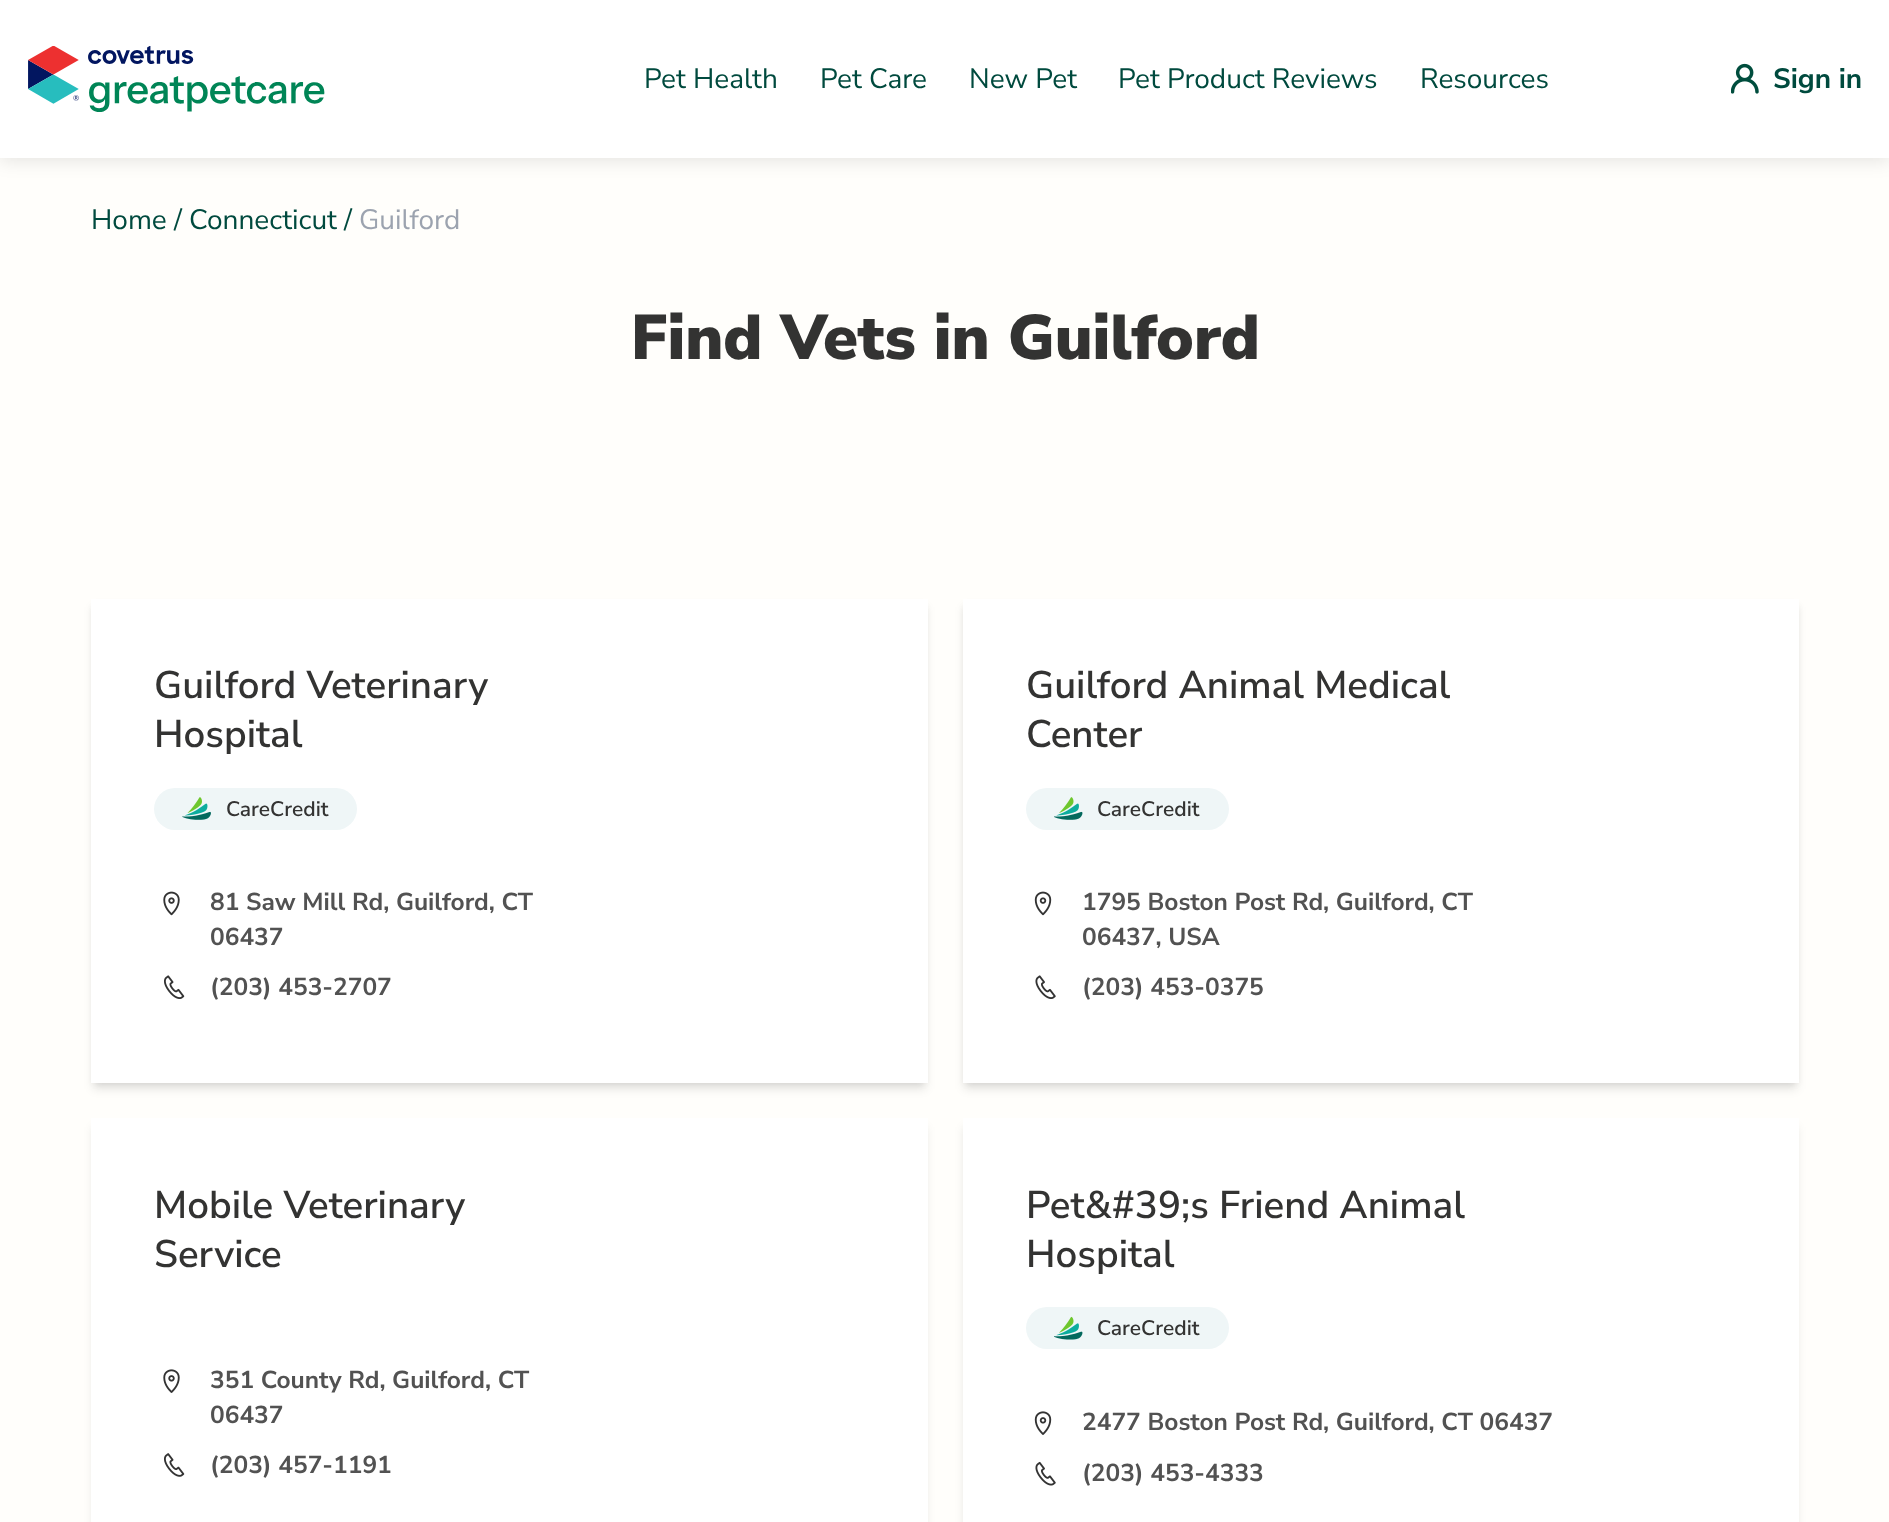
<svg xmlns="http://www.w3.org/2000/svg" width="1889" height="1522">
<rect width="100%" height="100%" fill="#fffefb"/>
<rect y="4" width="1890" height="157" fill="#0000001a" filter="blur(9px)"/>
<rect width="1889" height="158" fill="#fff"/>
<image x="28" y="46" width="297" height="66" href="media/1.png"/>
<text x="644" y="88" style="font-family:Nunito Sans;font-size:28px;fill:#004a3e">Pet Health</text>
<text x="820" y="88" style="font-family:Nunito Sans;font-size:28px;fill:#004a3e">Pet Care</text>
<text x="969" y="88" style="font-family:Nunito Sans;font-size:28px;fill:#004a3e">New Pet</text>
<text x="1118" y="88" style="font-family:Nunito Sans;font-size:28px;fill:#004a3e">Pet Product Reviews</text>
<text x="1420" y="88" style="font-family:Nunito Sans;font-size:28px;fill:#004a3e">Resources</text>
<image x="1731" y="63" width="28" height="31" href="media/2.png"/>
<text x="1773" y="88" style="font-family:Nunito Sans;font-size:28px;font-weight:bold;fill:#004a3e">Sign in</text>
<text x="91" y="229" style="font-family:Nunito Sans;font-size:28px;fill:#004a3e">Home / Connecticut /</text>
<text x="359" y="229" style="font-family:Nunito Sans;font-size:28px;fill:#9ca3af">Guilford</text>
<text x="631" y="359" style="font-family:Nunito Sans;font-size:63px;font-weight:900;fill:#333332">Find Vets in Guilford</text>
<rect x="95" y="606" width="829" height="477" fill="#0000001a" filter="blur(3.5px)"/>
<rect x="93" y="607" width="833" height="482" fill="#0000001a" filter="blur(5px)"/>
<rect x="91" y="599" width="837" height="484" fill="#fff"/>
<text x="154" y="698" style="font-family:Nunito Sans;font-size:38.5px;font-weight:600;fill:#333332">Guilford Veterinary</text>
<text x="154" y="747" style="font-family:Nunito Sans;font-size:38.5px;font-weight:600;fill:#333332">Hospital</text>
<rect x="154" y="788" width="203" height="42" rx="21" fill="#eff6f7"/>
<image x="182" y="797" width="29" height="23" href="media/3.png"/>
<text x="226" y="816" style="font-family:Nunito Sans;font-size:21px;font-weight:600;fill:#333332">CareCredit</text>
<image x="163" y="891" width="17" height="25" href="media/4.png"/>
<text x="210" y="910" style="font-family:Nunito Sans;font-size:24.5px;font-weight:bold;fill:#525252">81 Saw Mill Rd, Guilford, CT</text>
<text x="210" y="945" style="font-family:Nunito Sans;font-size:24.5px;font-weight:bold;fill:#525252">06437</text>
<image x="164" y="975" width="21" height="24" href="media/5.png"/>
<text x="210" y="995" style="font-family:Nunito Sans;font-size:24.5px;font-weight:bold;fill:#525252">(203) 453-2707</text>
<rect x="966" y="606" width="830" height="477" fill="#0000001a" filter="blur(3.5px)"/>
<rect x="964" y="607" width="833" height="482" fill="#0000001a" filter="blur(5px)"/>
<rect x="963" y="599" width="836" height="484" fill="#fff"/>
<text x="1026" y="698" style="font-family:Nunito Sans;font-size:38.5px;font-weight:600;fill:#333332">Guilford Animal Medical</text>
<text x="1026" y="747" style="font-family:Nunito Sans;font-size:38.5px;font-weight:600;fill:#333332">Center</text>
<rect x="1026" y="788" width="203" height="42" rx="21" fill="#eff6f7"/>
<image x="1054" y="797" width="29" height="23" href="media/6.png"/>
<text x="1097" y="816" style="font-family:Nunito Sans;font-size:21px;font-weight:600;fill:#333332">CareCredit</text>
<image x="1034" y="891" width="18" height="25" href="media/7.png"/>
<text x="1082" y="910" style="font-family:Nunito Sans;font-size:24.5px;font-weight:bold;fill:#525252">1795 Boston Post Rd, Guilford, CT</text>
<text x="1082" y="945" style="font-family:Nunito Sans;font-size:24.5px;font-weight:bold;fill:#525252">06437, USA</text>
<image x="1035" y="975" width="21" height="24" href="media/8.png"/>
<text x="1082" y="995" style="font-family:Nunito Sans;font-size:24.5px;font-weight:bold;fill:#525252">(203) 453-0375</text>
<rect x="93" y="1127" width="833" height="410" fill="#0000001a" filter="blur(5px)"/>
<rect x="91" y="1118" width="837" height="404" fill="#fff"/>
<text x="154" y="1218" style="font-family:Nunito Sans;font-size:38.5px;font-weight:600;fill:#333332">Mobile Veterinary</text>
<text x="154" y="1267" style="font-family:Nunito Sans;font-size:38.5px;font-weight:600;fill:#333332">Service</text>
<image x="163" y="1369" width="17" height="24" href="media/9.png"/>
<text x="210" y="1388" style="font-family:Nunito Sans;font-size:24.5px;font-weight:bold;fill:#525252">351 County Rd, Guilford, CT</text>
<text x="210" y="1423" style="font-family:Nunito Sans;font-size:24.5px;font-weight:bold;fill:#525252">06437</text>
<image x="164" y="1453" width="21" height="24" href="media/10.png"/>
<text x="210" y="1473" style="font-family:Nunito Sans;font-size:24.5px;font-weight:bold;fill:#525252">(203) 457-1191</text>
<rect x="964" y="1127" width="833" height="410" fill="#0000001a" filter="blur(5px)"/>
<rect x="963" y="1118" width="836" height="404" fill="#fff"/>
<text x="1026" y="1218" style="font-family:Nunito Sans;font-size:38.5px;font-weight:600;fill:#333332">Pet&amp;#39;s Friend Animal</text>
<text x="1026" y="1267" style="font-family:Nunito Sans;font-size:38.5px;font-weight:600;fill:#333332">Hospital</text>
<rect x="1026" y="1307" width="203" height="42" rx="21" fill="#eff6f7"/>
<image x="1054" y="1316" width="29" height="24" href="media/11.png"/>
<text x="1097" y="1335" style="font-family:Nunito Sans;font-size:21px;font-weight:600;fill:#333332">CareCredit</text>
<image x="1034" y="1411" width="18" height="24" href="media/12.png"/>
<text x="1082" y="1430" style="font-family:Nunito Sans;font-size:24.5px;font-weight:bold;fill:#525252">2477 Boston Post Rd, Guilford, CT 06437</text>
<image x="1035" y="1461" width="21" height="25" href="media/13.png"/>
<text x="1082" y="1481" style="font-family:Nunito Sans;font-size:24.5px;font-weight:bold;fill:#525252">(203) 453-4333</text>
</svg>
